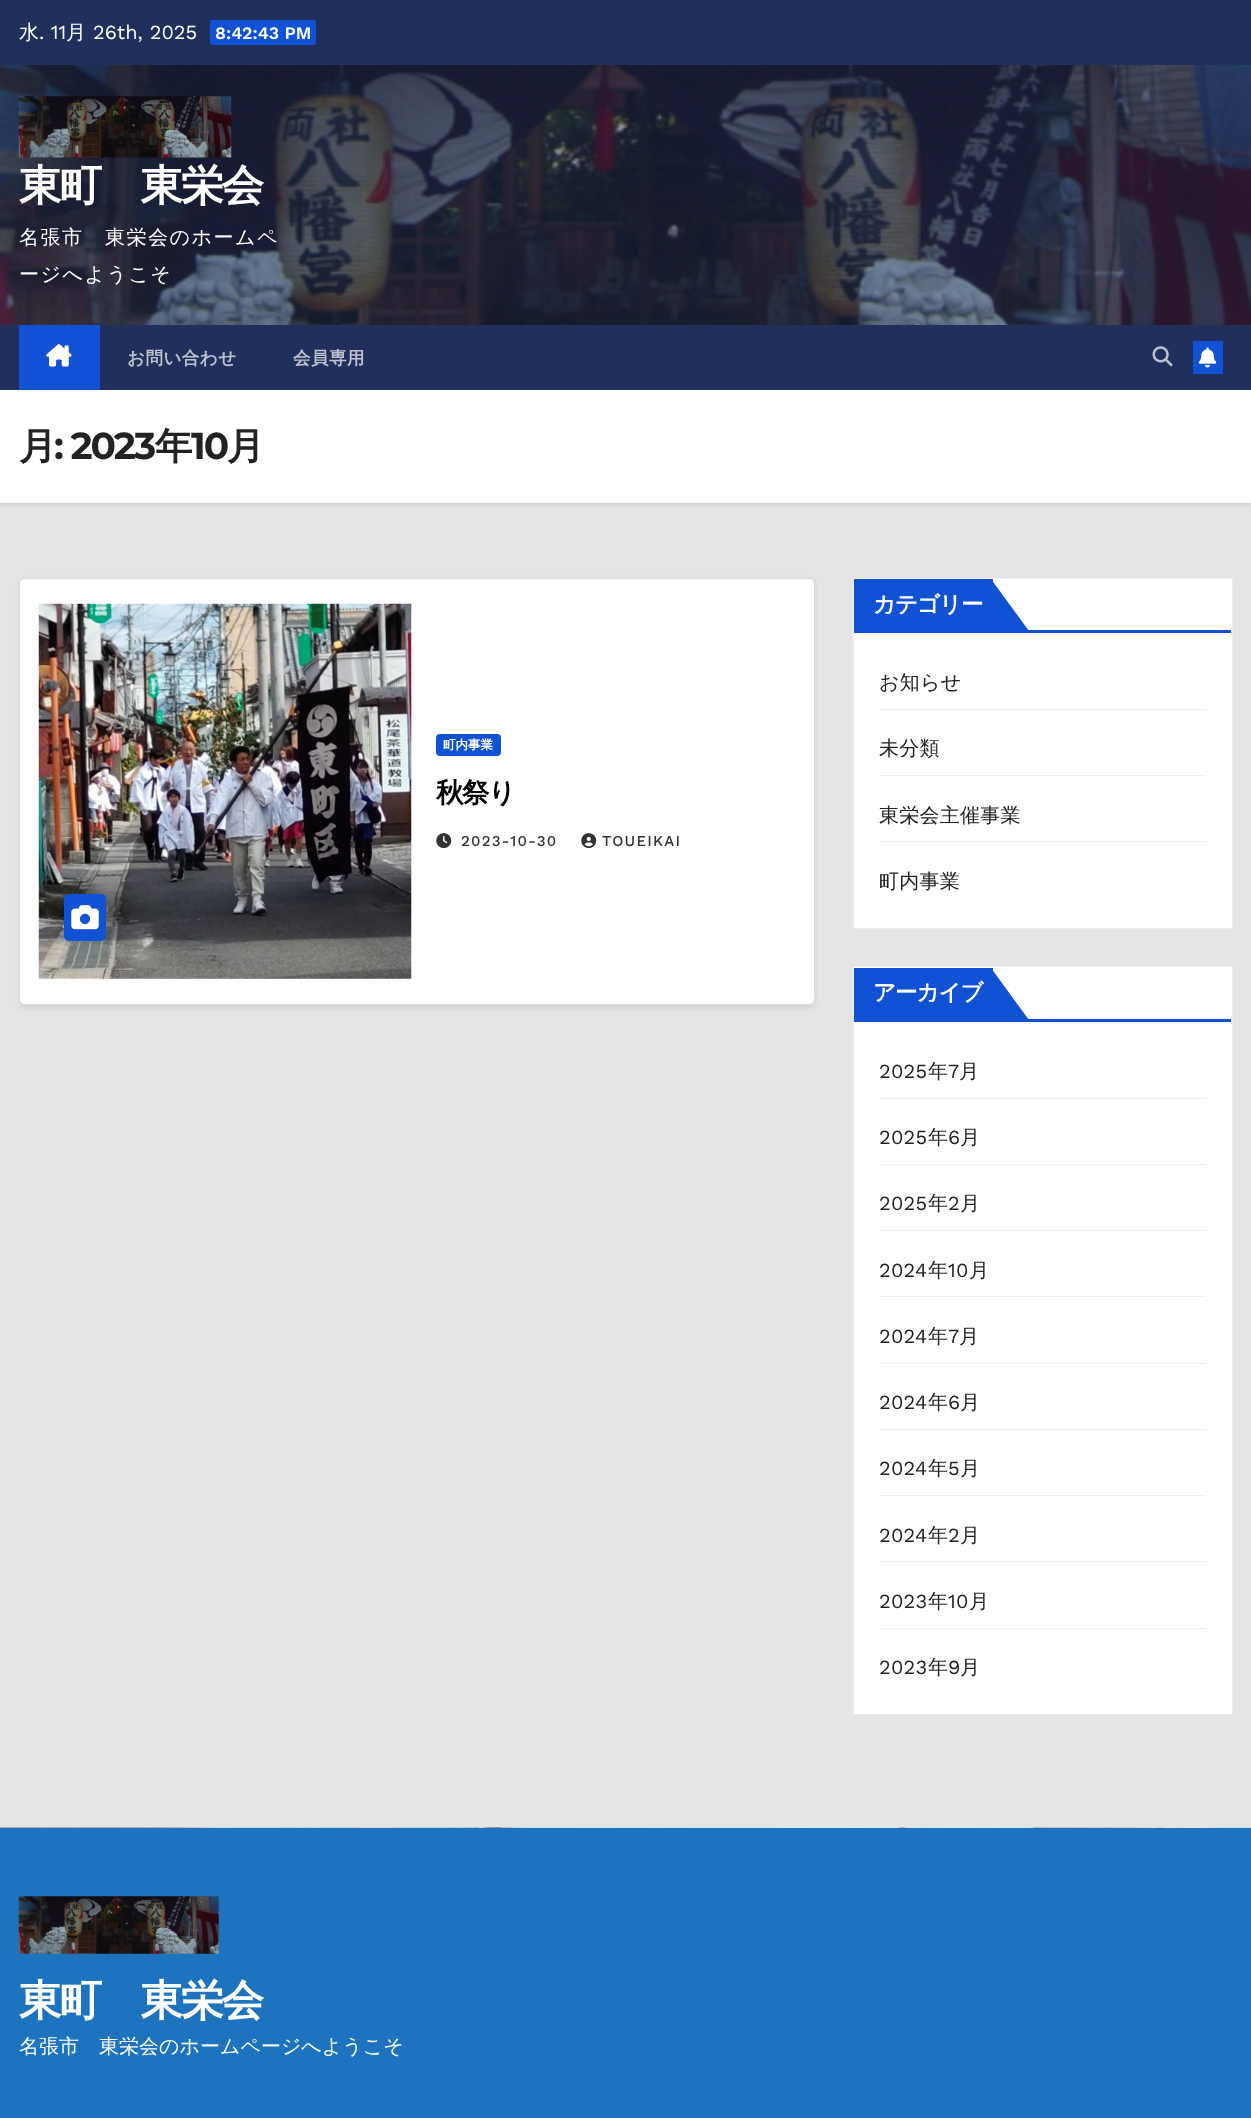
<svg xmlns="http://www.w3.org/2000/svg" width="1251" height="2118">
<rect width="100%" height="100%" fill="#e5e5e5"/>
<rect width="1251" height="65" fill="#202f5b"/>
<text x="19" y="39" style="font-family:WenQuanYi Zen Hei;font-size:20px;font-weight:500;fill:#fff">水</text>
<text x="39" y="39" style="font-family:Work Sans;font-size:20px;fill:#fff">. 11</text>
<text x="66" y="39" style="font-family:WenQuanYi Zen Hei;font-size:20px;font-weight:500;fill:#fff">月</text>
<text x="93" y="39" style="font-family:Work Sans;font-size:20px;fill:#fff">26th, 2025</text>
<rect x="210" y="20" width="106" height="25" rx="2.5" fill="#1151d3"/>
<text x="215" y="39" style="font-family:Work Sans;font-size:17.5px;font-weight:600;fill:#fff">8:42:43 PM</text>
<image x="0" y="65" width="1251" height="260" href="media/1.png"/>
<image x="18" y="96" width="214" height="62" href="media/2.png"/>
<text x="19" y="200" style="font-family:WenQuanYi Zen Hei;font-size:42.5px;font-weight:bold;letter-spacing:-2px;fill:#fff">東町　東栄会</text>
<text x="19" y="244" style="font-family:WenQuanYi Zen Hei;font-size:20px;font-weight:500;letter-spacing:1.5px;fill:#fff">名張市　東栄会のホームペ</text>
<text x="19" y="281" style="font-family:WenQuanYi Zen Hei;font-size:20px;font-weight:500;letter-spacing:1.5px;fill:#fff">ージへようこそ</text>
<rect y="391" width="1251" height="113" fill="#00000026" filter="blur(2px)"/>
<rect y="325" width="1251" height="65" fill="#202f5b"/>
<rect x="19" y="325" width="81" height="65" fill="#1151d3"/>
<image x="46" y="344" width="26" height="23" href="media/3.png"/>
<text x="127" y="364" style="font-family:WenQuanYi Zen Hei;font-size:17.5px;font-weight:bold;letter-spacing:0.5px;fill:#bec3cf">お問い合わせ</text>
<text x="293" y="364" style="font-family:WenQuanYi Zen Hei;font-size:17.5px;font-weight:bold;letter-spacing:0.5px;fill:#bec3cf">会員専用</text>
<image x="1152" y="346" width="21" height="21" href="media/4.png"/>
<rect x="1193" y="341" width="30" height="33" fill="#1151d3"/>
<image x="1198" y="347" width="19" height="21" href="media/5.png"/>
<rect y="390" width="1251" height="113" fill="#fff"/>
<text x="19" y="459" style="font-family:WenQuanYi Zen Hei;font-size:37.5px;font-weight:bold;letter-spacing:-2px;fill:#222">月</text>
<text x="54" y="459" style="font-family:Montserrat;font-size:37.5px;font-weight:bold;letter-spacing:-2px;fill:#222">: 2023</text>
<text x="155" y="459" style="font-family:WenQuanYi Zen Hei;font-size:37.5px;font-weight:bold;letter-spacing:-2px;fill:#222">年</text>
<text x="191" y="459" style="font-family:Montserrat;font-size:37.5px;font-weight:bold;letter-spacing:-2px;fill:#222">10</text>
<text x="227" y="459" style="font-family:WenQuanYi Zen Hei;font-size:37.5px;font-weight:bold;letter-spacing:-2px;fill:#222">月</text>
<rect x="19" y="580" width="796" height="428" rx="6" fill="#00000014" filter="blur(2.5px)"/>
<rect x="19.5" y="578.5" width="795" height="426" rx="5.5" fill="#fff" stroke="#dddcdc"/>
<image x="38" y="603" width="374" height="376" href="media/6.png"/>
<rect x="64" y="894" width="42" height="47" rx="5" fill="#1151d3"/>
<image x="71" y="905" width="28" height="25" href="media/7.png"/>
<rect x="436" y="734" width="65" height="22" rx="4" fill="#1151d3"/>
<text x="443" y="749" style="font-family:WenQuanYi Zen Hei;font-size:12.5px;font-weight:bold;fill:#fff">町内事業</text>
<text x="436" y="802" style="font-family:WenQuanYi Zen Hei;font-size:27.5px;font-weight:bold;letter-spacing:-1.5px;fill:#000">秋祭り</text>
<image x="436" y="833" width="16" height="16" href="media/8.png"/>
<text x="461" y="846" style="font-family:Work Sans;font-size:15px;font-weight:500;letter-spacing:1.25px;fill:#333">2023-10-30</text>
<image x="581" y="833" width="16" height="16" href="media/9.png"/>
<text x="602" y="846" style="font-family:Work Sans;font-size:15px;font-weight:500;letter-spacing:1.25px;fill:#333">TOUEIKAI</text>
<rect x="853.5" y="578.5" width="379" height="350" fill="#fff" stroke="#eee"/>
<rect x="854" y="579" width="139" height="51" fill="#1151d3"/>
<text x="873" y="612" style="font-family:WenQuanYi Zen Hei;font-size:22.5px;font-weight:bold;letter-spacing:-1px;fill:#fff">カテゴリー</text>
<path d="M991 631v-52l38 52z" fill="#1151d3"/>
<rect x="854" y="630" width="377" height="3" fill="#1151d3"/>
<rect x="879" y="709" width="327" height="1" fill="#eee"/>
<text x="879" y="689" style="font-family:WenQuanYi Zen Hei;font-size:20px;font-weight:500;letter-spacing:0.25px;fill:#222">お知らせ</text>
<rect x="879" y="775" width="327" height="1" fill="#eee"/>
<text x="879" y="755" style="font-family:WenQuanYi Zen Hei;font-size:20px;font-weight:500;letter-spacing:0.25px;fill:#222">未分類</text>
<rect x="879" y="841" width="327" height="1" fill="#eee"/>
<text x="879" y="822" style="font-family:WenQuanYi Zen Hei;font-size:20px;font-weight:500;letter-spacing:0.25px;fill:#222">東栄会主催事業</text>
<text x="879" y="888" style="font-family:WenQuanYi Zen Hei;font-size:20px;font-weight:500;letter-spacing:0.25px;fill:#222">町内事業</text>
<rect x="853.5" y="966.5" width="379" height="748" fill="#fff" stroke="#eee"/>
<rect x="854" y="968" width="139" height="51" fill="#1151d3"/>
<text x="873" y="1000" style="font-family:WenQuanYi Zen Hei;font-size:22.5px;font-weight:bold;letter-spacing:-1px;fill:#fff">アーカイブ</text>
<path d="M991 1020v-52l38 52z" fill="#1151d3"/>
<rect x="854" y="1019" width="377" height="3" fill="#1151d3"/>
<rect x="879" y="1098" width="327" height="1" fill="#eee"/>
<text x="879" y="1078" style="font-family:Work Sans;font-size:20px;letter-spacing:0.25px;fill:#222">2025</text>
<text x="928" y="1078" style="font-family:WenQuanYi Zen Hei;font-size:20px;font-weight:500;letter-spacing:0.25px;fill:#222">年</text>
<text x="948" y="1078" style="font-family:Work Sans;font-size:20px;letter-spacing:0.25px;fill:#222">7</text>
<text x="959" y="1078" style="font-family:WenQuanYi Zen Hei;font-size:20px;font-weight:500;letter-spacing:0.25px;fill:#222">月</text>
<rect x="879" y="1164" width="327" height="1" fill="#eee"/>
<text x="879" y="1144" style="font-family:Work Sans;font-size:20px;letter-spacing:0.25px;fill:#222">2025</text>
<text x="928" y="1144" style="font-family:WenQuanYi Zen Hei;font-size:20px;font-weight:500;letter-spacing:0.25px;fill:#222">年</text>
<text x="948" y="1144" style="font-family:Work Sans;font-size:20px;letter-spacing:0.25px;fill:#222">6</text>
<text x="960" y="1144" style="font-family:WenQuanYi Zen Hei;font-size:20px;font-weight:500;letter-spacing:0.25px;fill:#222">月</text>
<rect x="879" y="1230" width="327" height="1" fill="#eee"/>
<text x="879" y="1210" style="font-family:Work Sans;font-size:20px;letter-spacing:0.25px;fill:#222">2025</text>
<text x="928" y="1210" style="font-family:WenQuanYi Zen Hei;font-size:20px;font-weight:500;letter-spacing:0.25px;fill:#222">年</text>
<text x="948" y="1210" style="font-family:Work Sans;font-size:20px;letter-spacing:0.25px;fill:#222">2</text>
<text x="960" y="1210" style="font-family:WenQuanYi Zen Hei;font-size:20px;font-weight:500;letter-spacing:0.25px;fill:#222">月</text>
<rect x="879" y="1296" width="327" height="1" fill="#eee"/>
<text x="879" y="1277" style="font-family:Work Sans;font-size:20px;letter-spacing:0.25px;fill:#222">2024</text>
<text x="928" y="1277" style="font-family:WenQuanYi Zen Hei;font-size:20px;font-weight:500;letter-spacing:0.25px;fill:#222">年</text>
<text x="948" y="1277" style="font-family:Work Sans;font-size:20px;letter-spacing:0.25px;fill:#222">10</text>
<text x="969" y="1277" style="font-family:WenQuanYi Zen Hei;font-size:20px;font-weight:500;letter-spacing:0.25px;fill:#222">月</text>
<rect x="879" y="1363" width="327" height="1" fill="#eee"/>
<text x="879" y="1343" style="font-family:Work Sans;font-size:20px;letter-spacing:0.25px;fill:#222">2024</text>
<text x="928" y="1343" style="font-family:WenQuanYi Zen Hei;font-size:20px;font-weight:500;letter-spacing:0.25px;fill:#222">年</text>
<text x="948" y="1343" style="font-family:Work Sans;font-size:20px;letter-spacing:0.25px;fill:#222">7</text>
<text x="959" y="1343" style="font-family:WenQuanYi Zen Hei;font-size:20px;font-weight:500;letter-spacing:0.25px;fill:#222">月</text>
<rect x="879" y="1429" width="327" height="1" fill="#eee"/>
<text x="879" y="1409" style="font-family:Work Sans;font-size:20px;letter-spacing:0.25px;fill:#222">2024</text>
<text x="928" y="1409" style="font-family:WenQuanYi Zen Hei;font-size:20px;font-weight:500;letter-spacing:0.25px;fill:#222">年</text>
<text x="948" y="1409" style="font-family:Work Sans;font-size:20px;letter-spacing:0.25px;fill:#222">6</text>
<text x="960" y="1409" style="font-family:WenQuanYi Zen Hei;font-size:20px;font-weight:500;letter-spacing:0.25px;fill:#222">月</text>
<rect x="879" y="1495" width="327" height="1" fill="#eee"/>
<text x="879" y="1475" style="font-family:Work Sans;font-size:20px;letter-spacing:0.25px;fill:#222">2024</text>
<text x="928" y="1475" style="font-family:WenQuanYi Zen Hei;font-size:20px;font-weight:500;letter-spacing:0.25px;fill:#222">年</text>
<text x="948" y="1475" style="font-family:Work Sans;font-size:20px;letter-spacing:0.25px;fill:#222">5</text>
<text x="960" y="1475" style="font-family:WenQuanYi Zen Hei;font-size:20px;font-weight:500;letter-spacing:0.25px;fill:#222">月</text>
<rect x="879" y="1561" width="327" height="1" fill="#eee"/>
<text x="879" y="1542" style="font-family:Work Sans;font-size:20px;letter-spacing:0.25px;fill:#222">2024</text>
<text x="928" y="1542" style="font-family:WenQuanYi Zen Hei;font-size:20px;font-weight:500;letter-spacing:0.25px;fill:#222">年</text>
<text x="948" y="1542" style="font-family:Work Sans;font-size:20px;letter-spacing:0.25px;fill:#222">2</text>
<text x="960" y="1542" style="font-family:WenQuanYi Zen Hei;font-size:20px;font-weight:500;letter-spacing:0.25px;fill:#222">月</text>
<rect x="879" y="1628" width="327" height="1" fill="#eee"/>
<text x="879" y="1608" style="font-family:Work Sans;font-size:20px;letter-spacing:0.25px;fill:#222">2023</text>
<text x="928" y="1608" style="font-family:WenQuanYi Zen Hei;font-size:20px;font-weight:500;letter-spacing:0.25px;fill:#222">年</text>
<text x="948" y="1608" style="font-family:Work Sans;font-size:20px;letter-spacing:0.25px;fill:#222">10</text>
<text x="969" y="1608" style="font-family:WenQuanYi Zen Hei;font-size:20px;font-weight:500;letter-spacing:0.25px;fill:#222">月</text>
<text x="879" y="1674" style="font-family:Work Sans;font-size:20px;letter-spacing:0.25px;fill:#222">2023</text>
<text x="928" y="1674" style="font-family:WenQuanYi Zen Hei;font-size:20px;font-weight:500;letter-spacing:0.25px;fill:#222">年</text>
<text x="948" y="1674" style="font-family:Work Sans;font-size:20px;letter-spacing:0.25px;fill:#222">9</text>
<text x="960" y="1674" style="font-family:WenQuanYi Zen Hei;font-size:20px;font-weight:500;letter-spacing:0.25px;fill:#222">月</text>
<image x="0" y="1827" width="1251" height="1" href="media/10.png"/>
<rect y="1828" width="1251" height="290" fill="#1e73be"/>
<image x="18" y="1896" width="201" height="58" href="media/11.png"/>
<text x="19" y="2015" style="font-family:WenQuanYi Zen Hei;font-size:42.5px;font-weight:bold;letter-spacing:-2px;fill:#fff">東町　東栄会</text>
<text x="19" y="2053" style="font-family:WenQuanYi Zen Hei;font-size:20px;font-weight:500;fill:#fff">名張市　東栄会のホームページへようこそ</text>
</svg>
